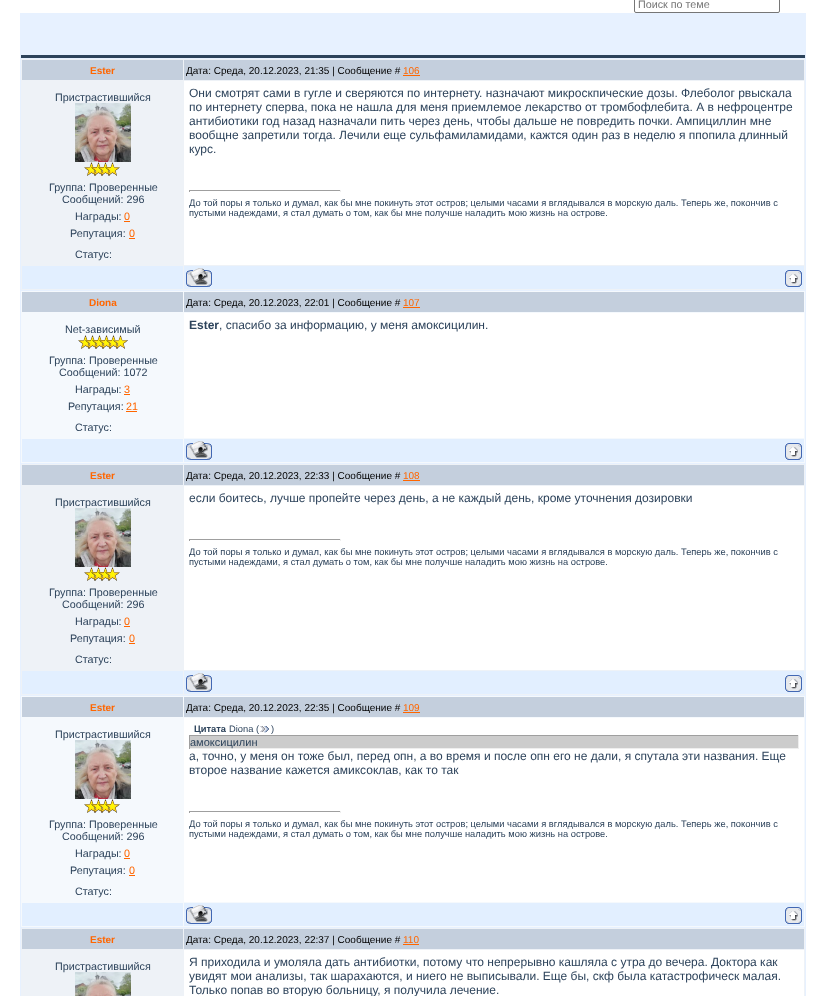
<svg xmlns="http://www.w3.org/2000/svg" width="816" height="996">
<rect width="100%" height="100%" fill="#fff"/>
<rect x="634.5" y="-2.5" width="145" height="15" rx="1.5" fill="none" stroke="#767676"/>
<text x="638" y="8" style="font-family:Liberation Sans;font-size:10.75px;fill:#757575">Поиск по теме</text>
<rect x="20" y="13" width="786" height="983" fill="#e7f1ff"/>
<rect x="21" y="55" width="784" height="3" fill="#2d435b"/>
<rect x="21" y="59" width="784" height="231" fill="#eef2f7"/>
<rect x="22" y="60" width="161" height="20" fill="#c4cfdd"/>
<text x="90" y="74" style="font-family:Liberation Sans;font-size:10px;font-weight:bold;fill:#f60">Ester</text>
<rect x="184" y="60" width="620" height="20" fill="#c4cfdd"/>
<text x="186" y="74" style="font-family:Liberation Sans;font-size:10px;fill:#000">Дата: Среда, 20.12.2023, 21:35 | Сообщение #</text>
<text x="403" y="74" style="font-family:Liberation Sans;font-size:10px;fill:#f60">106</text>
<rect x="403" y="75" width="17" height="1" fill="#f60"/>
<text x="55" y="101" style="font-family:Liberation Sans;font-size:10.75px;fill:#2d435b">Пристрастившийся</text>
<image x="75" y="103" width="56" height="59" href="media/1.png"/>
<image x="84" y="162" width="36" height="14" href="media/2.png"/>
<text x="49" y="191" style="font-family:Liberation Sans;font-size:10.75px;fill:#2d435b">Группа: Проверенные</text>
<text x="62" y="203" style="font-family:Liberation Sans;font-size:10.75px;fill:#2d435b">Сообщений: 296</text>
<text x="75" y="220" style="font-family:Liberation Sans;font-size:10.75px;fill:#2d435b">Награды:</text>
<text x="124" y="220" style="font-family:Liberation Sans;font-size:10.75px;fill:#f60">0</text>
<rect x="124" y="221" width="6" height="1" fill="#f60"/>
<text x="70" y="237" style="font-family:Liberation Sans;font-size:10.75px;fill:#2d435b">Репутация:</text>
<text x="129" y="237" style="font-family:Liberation Sans;font-size:10.75px;fill:#f60">0</text>
<rect x="129" y="238" width="6" height="1" fill="#f60"/>
<text x="75" y="258" style="font-family:Liberation Sans;font-size:10.75px;fill:#2d435b">Статус:</text>
<rect x="184" y="81" width="620" height="184" fill="#fff"/>
<text x="189" y="97" style="font-family:Liberation Sans;font-size:12px;fill:#2d435b">Они смотрят сами в гугле и сверяются по интернету. назначают микроскпические дозы. Флеболог рвыскала</text>
<text x="189" y="111" style="font-family:Liberation Sans;font-size:12px;fill:#2d435b">по интернету сперва, пока не нашла для меня приемлемое лекарство от тромбофлебита. А в нефроцентре</text>
<text x="189" y="125" style="font-family:Liberation Sans;font-size:12px;fill:#2d435b">антибиотики год назад назначали пить через день, чтобы дальше не повредить почки. Ампициллин мне</text>
<text x="189" y="139" style="font-family:Liberation Sans;font-size:12px;fill:#2d435b">вообщне запретили тогда. Лечили еще сульфамиламидами, кажтся один раз в неделю я ппопила длинный</text>
<text x="189" y="153" style="font-family:Liberation Sans;font-size:12px;fill:#2d435b">курс.</text>
<rect x="189" y="190" width="152" height="1" fill="#9f9f9f"/>
<rect x="340" y="190" width="1" height="2" fill="#eee"/>
<rect x="189" y="190" width="1" height="2" fill="#9f9f9f"/>
<text x="189" y="206" style="font-family:Liberation Sans;font-size:9.33px;fill:#2d435b">До той поры я только и думал, как бы мне покинуть этот остров; целыми часами я вглядывался в морскую даль. Теперь же, покончив с</text>
<text x="189" y="216" style="font-family:Liberation Sans;font-size:9.33px;fill:#2d435b">пустыми надеждами, я стал думать о том, как бы мне получше наладить мою жизнь на острове.</text>
<rect x="22" y="266" width="161" height="23" fill="#e2efff"/>
<rect x="184" y="266" width="620" height="23" fill="#e2efff"/>
<image x="186" y="268" width="26" height="19" href="media/3.png"/>
<image x="785" y="270" width="17" height="17" href="media/4.png"/>
<rect x="21" y="291" width="784" height="172" fill="#f5f9fd"/>
<rect x="22" y="292" width="161" height="20" fill="#c4cfdd"/>
<text x="89" y="306" style="font-family:Liberation Sans;font-size:10px;font-weight:bold;fill:#f60">Diona</text>
<rect x="184" y="292" width="620" height="20" fill="#c4cfdd"/>
<text x="186" y="306" style="font-family:Liberation Sans;font-size:10px;fill:#000">Дата: Среда, 20.12.2023, 22:01 | Сообщение #</text>
<text x="403" y="306" style="font-family:Liberation Sans;font-size:10px;fill:#f60">107</text>
<rect x="403" y="307" width="17" height="1" fill="#f60"/>
<text x="65" y="333" style="font-family:Liberation Sans;font-size:10.75px;fill:#2d435b">Net-зависимый</text>
<image x="78" y="335" width="50" height="14" href="media/5.png"/>
<text x="49" y="364" style="font-family:Liberation Sans;font-size:10.75px;fill:#2d435b">Группа: Проверенные</text>
<text x="59" y="376" style="font-family:Liberation Sans;font-size:10.75px;fill:#2d435b">Сообщений: 1072</text>
<text x="75" y="393" style="font-family:Liberation Sans;font-size:10.75px;fill:#2d435b">Награды:</text>
<text x="124" y="393" style="font-family:Liberation Sans;font-size:10.75px;fill:#f60">3</text>
<rect x="124" y="394" width="6" height="1" fill="#f60"/>
<text x="68" y="410" style="font-family:Liberation Sans;font-size:10.75px;fill:#2d435b">Репутация:</text>
<text x="126" y="410" style="font-family:Liberation Sans;font-size:10.75px;fill:#f60">21</text>
<rect x="126" y="411" width="11" height="1" fill="#f60"/>
<text x="75" y="431" style="font-family:Liberation Sans;font-size:10.75px;fill:#2d435b">Статус:</text>
<rect x="184" y="313" width="620" height="125" fill="#fff"/>
<text x="189" y="329" style="font-family:Liberation Sans;font-size:12px;font-weight:bold;fill:#2d435b">Ester</text>
<text x="219" y="329" style="font-family:Liberation Sans;font-size:12px;fill:#2d435b">, спасибо за информацию, у меня амоксицилин.</text>
<rect x="22" y="439" width="161" height="23" fill="#e2efff"/>
<rect x="184" y="439" width="620" height="23" fill="#e2efff"/>
<image x="186" y="441" width="26" height="19" href="media/3.png"/>
<image x="785" y="443" width="17" height="17" href="media/4.png"/>
<rect x="21" y="464" width="784" height="231" fill="#eef2f7"/>
<rect x="22" y="465" width="161" height="20" fill="#c4cfdd"/>
<text x="90" y="479" style="font-family:Liberation Sans;font-size:10px;font-weight:bold;fill:#f60">Ester</text>
<rect x="184" y="465" width="620" height="20" fill="#c4cfdd"/>
<text x="186" y="479" style="font-family:Liberation Sans;font-size:10px;fill:#000">Дата: Среда, 20.12.2023, 22:33 | Сообщение #</text>
<text x="403" y="479" style="font-family:Liberation Sans;font-size:10px;fill:#f60">108</text>
<rect x="403" y="480" width="17" height="1" fill="#f60"/>
<text x="55" y="506" style="font-family:Liberation Sans;font-size:10.75px;fill:#2d435b">Пристрастившийся</text>
<image x="75" y="508" width="56" height="59" href="media/1.png"/>
<image x="84" y="567" width="36" height="14" href="media/2.png"/>
<text x="49" y="596" style="font-family:Liberation Sans;font-size:10.75px;fill:#2d435b">Группа: Проверенные</text>
<text x="62" y="608" style="font-family:Liberation Sans;font-size:10.75px;fill:#2d435b">Сообщений: 296</text>
<text x="75" y="625" style="font-family:Liberation Sans;font-size:10.75px;fill:#2d435b">Награды:</text>
<text x="124" y="625" style="font-family:Liberation Sans;font-size:10.75px;fill:#f60">0</text>
<rect x="124" y="626" width="6" height="1" fill="#f60"/>
<text x="70" y="642" style="font-family:Liberation Sans;font-size:10.75px;fill:#2d435b">Репутация:</text>
<text x="129" y="642" style="font-family:Liberation Sans;font-size:10.75px;fill:#f60">0</text>
<rect x="129" y="643" width="6" height="1" fill="#f60"/>
<text x="75" y="663" style="font-family:Liberation Sans;font-size:10.75px;fill:#2d435b">Статус:</text>
<rect x="184" y="486" width="620" height="184" fill="#fff"/>
<text x="189" y="502" style="font-family:Liberation Sans;font-size:12px;fill:#2d435b">если боитесь, лучше пропейте через день, а не каждый день, кроме уточнения дозировки</text>
<rect x="189" y="539" width="152" height="1" fill="#9f9f9f"/>
<rect x="340" y="539" width="1" height="2" fill="#eee"/>
<rect x="189" y="539" width="1" height="2" fill="#9f9f9f"/>
<text x="189" y="555" style="font-family:Liberation Sans;font-size:9.33px;fill:#2d435b">До той поры я только и думал, как бы мне покинуть этот остров; целыми часами я вглядывался в морскую даль. Теперь же, покончив с</text>
<text x="189" y="565" style="font-family:Liberation Sans;font-size:9.33px;fill:#2d435b">пустыми надеждами, я стал думать о том, как бы мне получше наладить мою жизнь на острове.</text>
<rect x="22" y="671" width="161" height="23" fill="#e2efff"/>
<rect x="184" y="671" width="620" height="23" fill="#e2efff"/>
<image x="186" y="673" width="26" height="19" href="media/3.png"/>
<image x="785" y="675" width="17" height="17" href="media/4.png"/>
<rect x="21" y="696" width="784" height="231" fill="#f5f9fd"/>
<rect x="22" y="697" width="161" height="20" fill="#c4cfdd"/>
<text x="90" y="711" style="font-family:Liberation Sans;font-size:10px;font-weight:bold;fill:#f60">Ester</text>
<rect x="184" y="697" width="620" height="20" fill="#c4cfdd"/>
<text x="186" y="711" style="font-family:Liberation Sans;font-size:10px;fill:#000">Дата: Среда, 20.12.2023, 22:35 | Сообщение #</text>
<text x="403" y="711" style="font-family:Liberation Sans;font-size:10px;fill:#f60">109</text>
<rect x="403" y="712" width="17" height="1" fill="#f60"/>
<text x="55" y="738" style="font-family:Liberation Sans;font-size:10.75px;fill:#2d435b">Пристрастившийся</text>
<image x="75" y="740" width="56" height="59" href="media/1.png"/>
<image x="84" y="799" width="36" height="14" href="media/6.png"/>
<text x="49" y="828" style="font-family:Liberation Sans;font-size:10.75px;fill:#2d435b">Группа: Проверенные</text>
<text x="62" y="840" style="font-family:Liberation Sans;font-size:10.75px;fill:#2d435b">Сообщений: 296</text>
<text x="75" y="857" style="font-family:Liberation Sans;font-size:10.75px;fill:#2d435b">Награды:</text>
<text x="124" y="857" style="font-family:Liberation Sans;font-size:10.75px;fill:#f60">0</text>
<rect x="124" y="858" width="6" height="1" fill="#f60"/>
<text x="70" y="874" style="font-family:Liberation Sans;font-size:10.75px;fill:#2d435b">Репутация:</text>
<text x="129" y="874" style="font-family:Liberation Sans;font-size:10.75px;fill:#f60">0</text>
<rect x="129" y="875" width="6" height="1" fill="#f60"/>
<text x="75" y="895" style="font-family:Liberation Sans;font-size:10.75px;fill:#2d435b">Статус:</text>
<rect x="184" y="718" width="620" height="184" fill="#fff"/>
<text x="194" y="732" style="font-family:Liberation Sans;font-size:9.33px;font-weight:bold;fill:#2d435b">Цитата</text>
<text x="229" y="732" style="font-family:Liberation Sans;font-size:9.33px;fill:#2d435b">Diona (</text>
<image x="260" y="726" width="9" height="7" href="media/7.png"/>
<text x="271" y="732" style="font-family:Liberation Sans;font-size:9.33px;fill:#2d435b">)</text>
<rect x="190" y="736" width="608" height="12" fill="#ccc"/>
<rect x="189" y="735" width="610" height="1" fill="#9f9f9f"/>
<rect x="798" y="735" width="1" height="14" fill="#eee"/>
<rect x="189" y="748" width="610" height="1" fill="#eee"/>
<rect x="189" y="735" width="1" height="14" fill="#9f9f9f"/>
<text x="190" y="746" style="font-family:Liberation Sans;font-size:11px;fill:#2d435b">амоксицилин</text>
<text x="189" y="760" style="font-family:Liberation Sans;font-size:12px;fill:#2d435b">а, точно, у меня он тоже был, перед опн, а во время и после опн его не дали, я спутала эти названия. Еще</text>
<text x="189" y="774" style="font-family:Liberation Sans;font-size:12px;fill:#2d435b">второе название кажется амиксоклав, как то так</text>
<rect x="189" y="811" width="152" height="1" fill="#9f9f9f"/>
<rect x="340" y="811" width="1" height="2" fill="#eee"/>
<rect x="189" y="811" width="1" height="2" fill="#9f9f9f"/>
<text x="189" y="827" style="font-family:Liberation Sans;font-size:9.33px;fill:#2d435b">До той поры я только и думал, как бы мне покинуть этот остров; целыми часами я вглядывался в морскую даль. Теперь же, покончив с</text>
<text x="189" y="837" style="font-family:Liberation Sans;font-size:9.33px;fill:#2d435b">пустыми надеждами, я стал думать о том, как бы мне получше наладить мою жизнь на острове.</text>
<rect x="22" y="903" width="161" height="23" fill="#e2efff"/>
<rect x="184" y="903" width="620" height="23" fill="#e2efff"/>
<image x="186" y="905" width="26" height="19" href="media/3.png"/>
<image x="785" y="907" width="17" height="17" href="media/4.png"/>
<rect x="21" y="928" width="784" height="68" fill="#eef2f7"/>
<rect x="22" y="929" width="161" height="20" fill="#c4cfdd"/>
<text x="90" y="943" style="font-family:Liberation Sans;font-size:10px;font-weight:bold;fill:#f60">Ester</text>
<rect x="184" y="929" width="620" height="20" fill="#c4cfdd"/>
<text x="186" y="943" style="font-family:Liberation Sans;font-size:10px;fill:#000">Дата: Среда, 20.12.2023, 22:37 | Сообщение #</text>
<text x="403" y="943" style="font-family:Liberation Sans;font-size:10px;fill:#f60">110</text>
<rect x="403" y="944" width="16" height="1" fill="#f60"/>
<text x="55" y="970" style="font-family:Liberation Sans;font-size:10.75px;fill:#2d435b">Пристрастившийся</text>
<image x="75" y="972" width="56" height="24" href="media/8.png"/>
<rect x="184" y="950" width="620" height="46" fill="#fff"/>
<text x="189" y="966" style="font-family:Liberation Sans;font-size:12px;fill:#2d435b">Я приходила и умоляла дать антибиотки, потому что непрерывно кашляла с утра до вечера. Доктора как</text>
<text x="189" y="980" style="font-family:Liberation Sans;font-size:12px;fill:#2d435b">увидят мои анализы, так шарахаются, и ниего не выписывали. Еще бы, скф была катастрофическ малая.</text>
<text x="189" y="994" style="font-family:Liberation Sans;font-size:12px;fill:#2d435b">Только попав во вторую больницу, я получила лечение.</text>
</svg>
